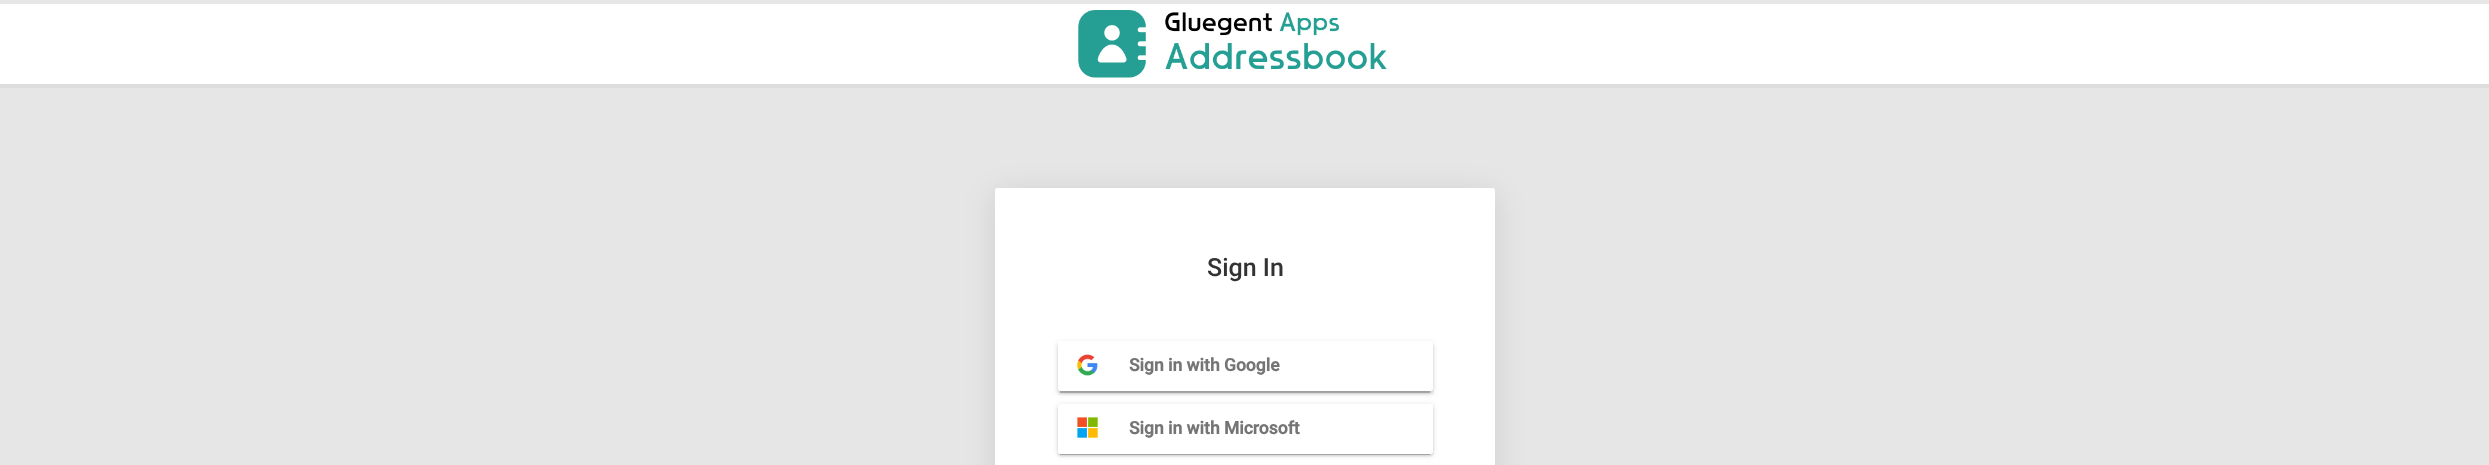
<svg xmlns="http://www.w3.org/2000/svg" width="2489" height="465">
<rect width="100%" height="100%" fill="#e6e6e6"/>
<rect y="4" width="2489" height="80" fill="#fff"/>
<rect y="84" width="2489" height="4" fill="#ddd"/>
<image x="1078" y="10" width="309" height="68" href="media/1.png"/>
<rect x="995" y="193" width="500" height="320" rx="2.5" fill="#0000001a" filter="blur(15px)"/>
<rect x="995" y="188" width="500" height="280" rx="2.5" fill="#fff"/>
<text x="1207" y="276" style="font-family:Roboto;font-size:25px;font-weight:500;fill:#333">Sign In</text>
<rect x="1058" y="343" width="375" height="50" rx="2.5" fill="#0000001f" filter="blur(3px)"/>
<rect x="1060" y="348" width="370" height="45" fill="#00000033" filter="blur(0.5px)"/>
<rect x="1058" y="344" width="375" height="50" rx="2.5" fill="#00000024" filter="blur(1px)"/>
<rect x="1058" y="341" width="375" height="50" rx="2.5" fill="#fff"/>
<image x="1077" y="354" width="21" height="22" href="media/2.png"/>
<text x="1129" y="371" style="font-family:Roboto;font-size:17.5px;font-weight:bold;fill:#757575">Sign in with Google</text>
<rect x="1058" y="405" width="375" height="50" rx="2.5" fill="#0000001f" filter="blur(3px)"/>
<rect x="1060" y="410" width="370" height="45" fill="#00000033" filter="blur(0.5px)"/>
<rect x="1058" y="406" width="375" height="50" rx="2.5" fill="#00000024" filter="blur(1px)"/>
<rect x="1058" y="404" width="375" height="50" rx="2.5" fill="#fff"/>
<image x="1077" y="417" width="21" height="21" href="media/3.png"/>
<text x="1129" y="434" style="font-family:Roboto;font-size:17.5px;font-weight:bold;fill:#757575">Sign in with Microsoft</text>
</svg>
